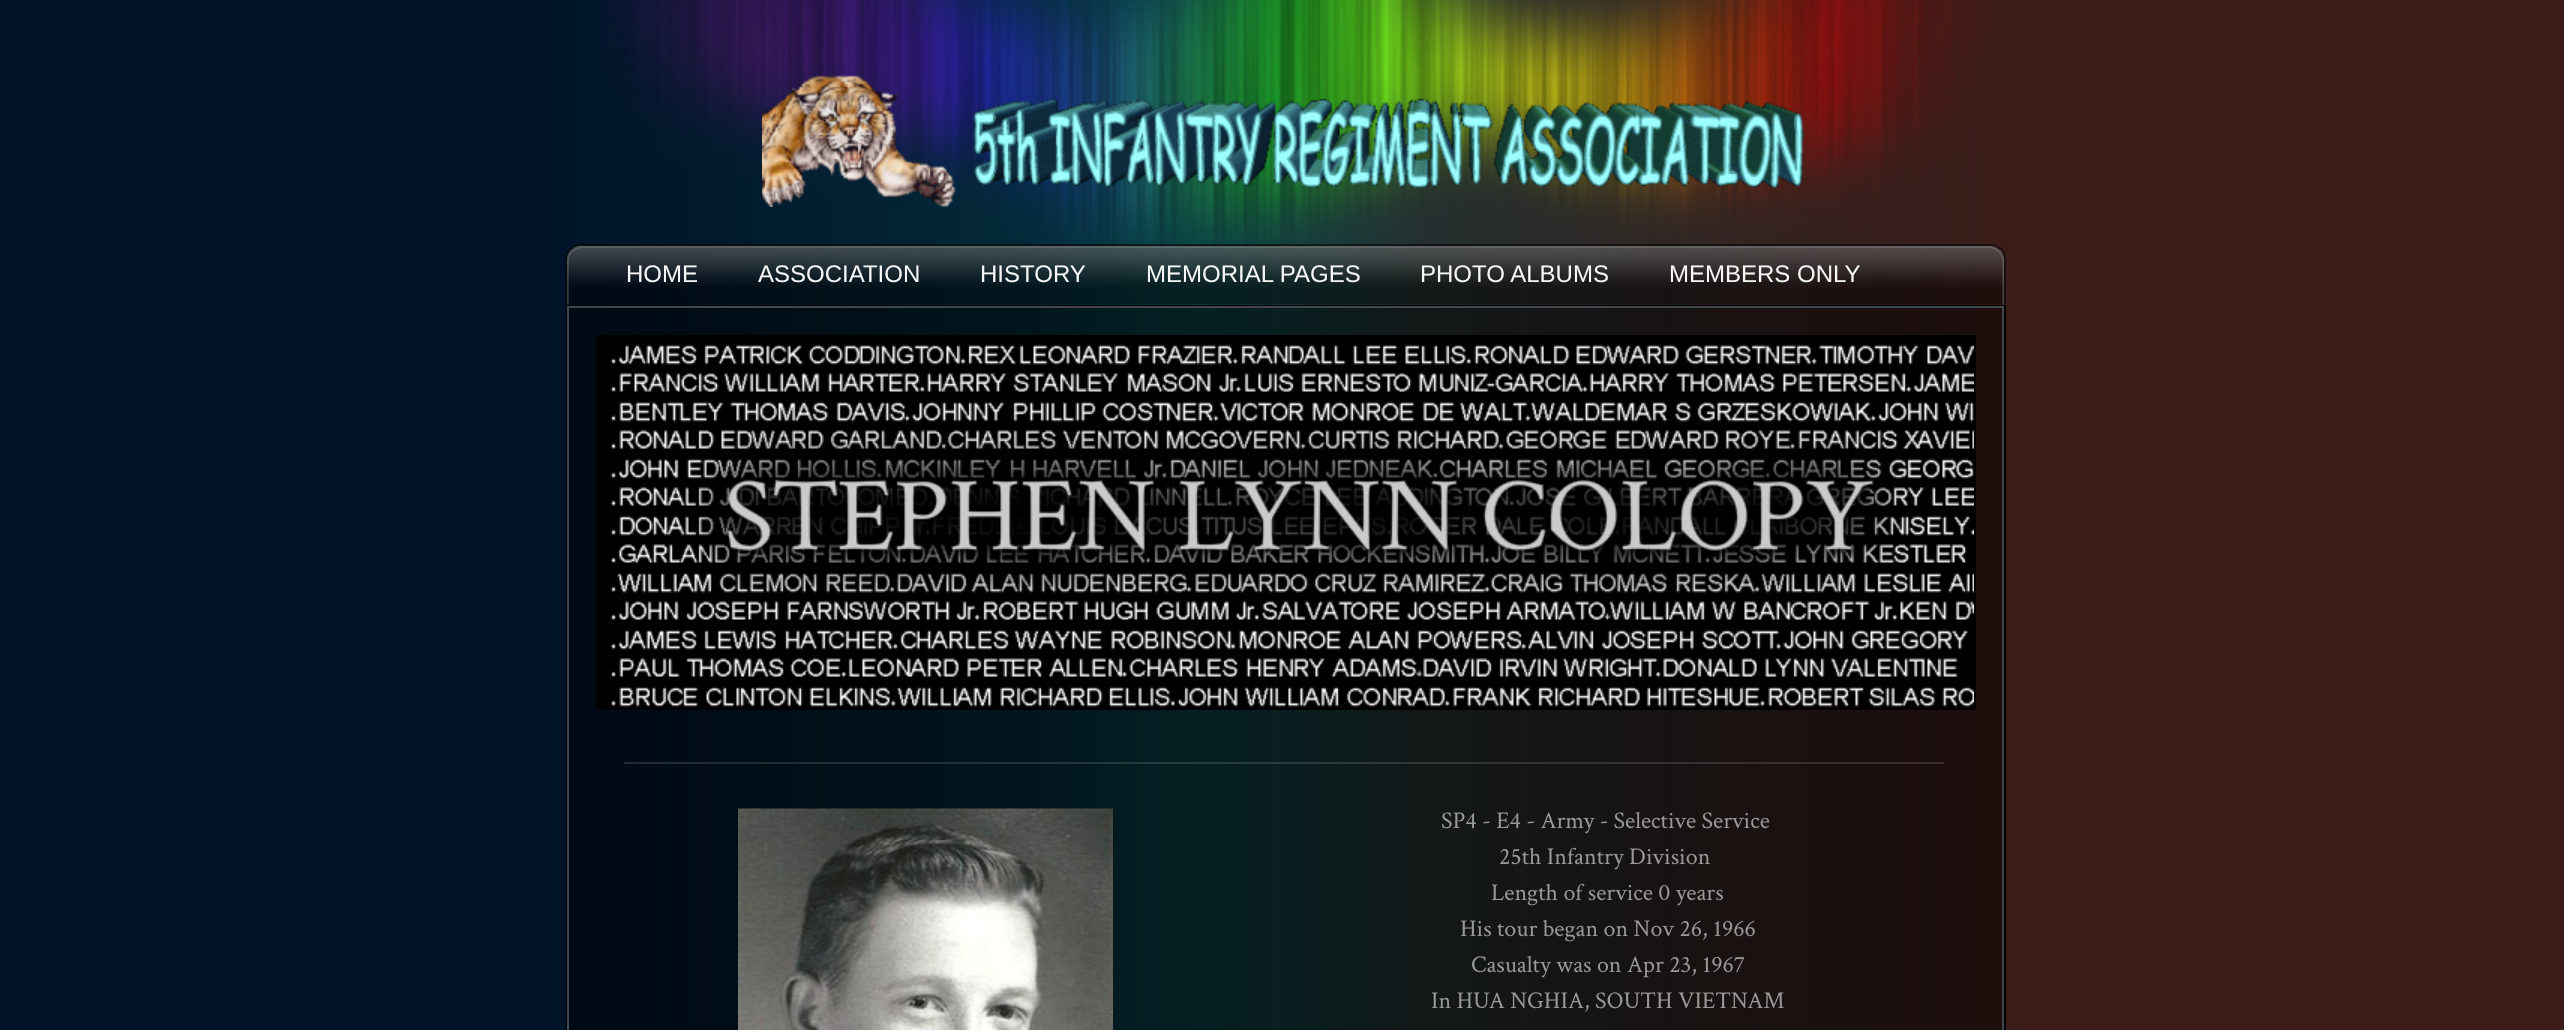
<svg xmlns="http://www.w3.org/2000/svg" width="2564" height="1030">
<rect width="100%" height="100%" fill="#fff"/>
<image x="0" y="0" width="2564" height="1030" href="media/1.png"/>
<image x="601" y="0" width="1389" height="260" href="media/2.png"/>
<image x="762" y="75" width="1043" height="132" href="media/3.png"/>
<image x="565" y="244" width="1441" height="61" href="media/4.png"/>
<text x="626" y="282" style="font-family:Liberation Sans;font-size:24px;fill:#f7f7f7">HOME</text>
<text x="758" y="282" style="font-family:Liberation Sans;font-size:24px;fill:#f7f7f7">ASSOCIATION</text>
<text x="980" y="282" style="font-family:Liberation Sans;font-size:24px;fill:#f7f7f7">HISTORY</text>
<text x="1146" y="282" style="font-family:Liberation Sans;font-size:24px;fill:#f7f7f7">MEMORIAL PAGES</text>
<text x="1420" y="282" style="font-family:Liberation Sans;font-size:24px;fill:#f7f7f7">PHOTO ALBUMS</text>
<text x="1669" y="282" style="font-family:Liberation Sans;font-size:24px;fill:#f7f7f7">MEMBERS ONLY</text>
<rect x="567" y="306" width="1438" height="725" fill="none" stroke="#000" stroke-width="2"/>
<rect x="568" y="307" width="1435" height="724" fill="#00000080" stroke="#40474e" stroke-width="2"/>
<rect x="597" y="336" width="1378" height="373" fill="none" stroke="#000" stroke-width="2"/>
<image x="598" y="337" width="1376" height="371" href="media/5.png"/>
<rect x="624" y="762" width="1320" height="2" fill="#ffffff21"/>
<image x="738" y="808" width="375" height="222" href="media/6.png"/>
<text x="1441" y="828" style="font-family:Crimson Text;font-size:24px;fill:#999">SP4 - E4 - Army - Selective Service</text>
<text x="1499" y="864" style="font-family:Crimson Text;font-size:24px;fill:#999">25th Infantry Division</text>
<text x="1491" y="900" style="font-family:Crimson Text;font-size:24px;fill:#999">Length of service 0 years</text>
<text x="1460" y="936" style="font-family:Crimson Text;font-size:24px;fill:#999">His tour began on Nov 26, 1966</text>
<text x="1471" y="972" style="font-family:Crimson Text;font-size:24px;fill:#999">Casualty was on Apr 23, 1967</text>
<text x="1431" y="1008" style="font-family:Crimson Text;font-size:24px;fill:#999">In HUA NGHIA, SOUTH VIETNAM</text>
</svg>
